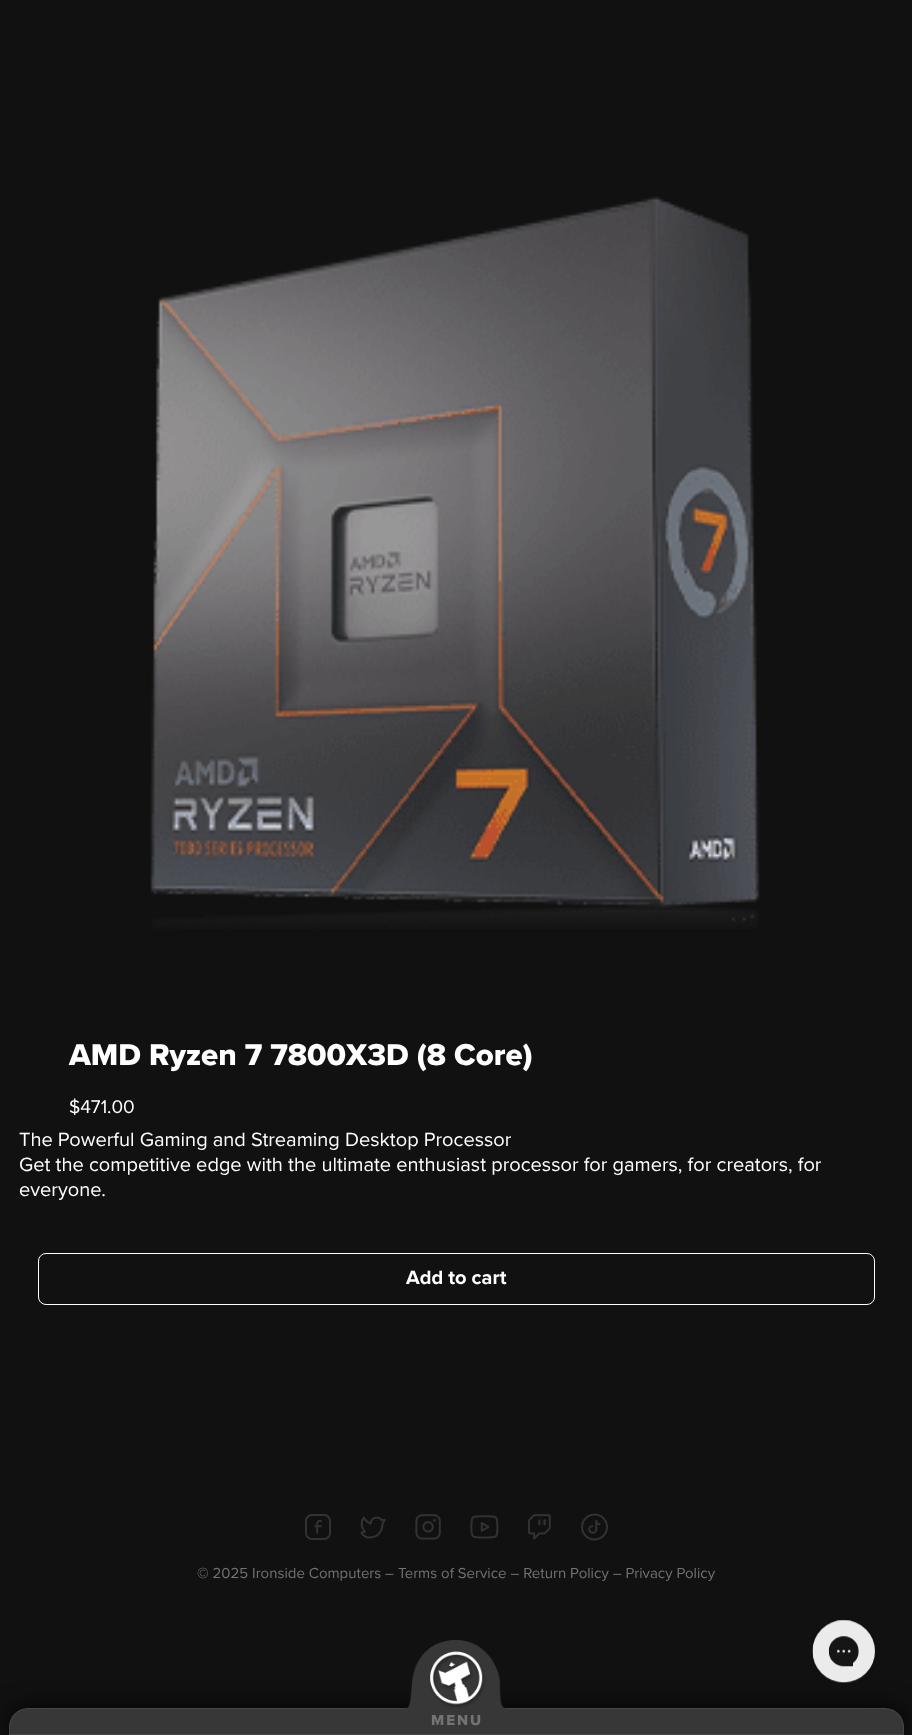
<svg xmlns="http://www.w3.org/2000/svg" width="912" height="1735">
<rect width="100%" height="100%" fill="#111"/>
<image x="150" y="196" width="610" height="733" href="media/1.png"/>
<text x="69" y="1065" style="font-family:Proxima Nova;font-size:31.25px;font-weight:800;fill:#fff">AMD Ryzen 7 7800X3D (8 Core)</text>
<text x="69" y="1113" style="font-family:Proxima Nova;font-size:19px;fill:#fff">$471.00</text>
<text x="19" y="1146" style="font-family:Proxima Nova;font-size:20px;fill:#fff">The Powerful Gaming and Streaming Desktop Processor</text>
<text x="19" y="1171" style="font-family:Proxima Nova;font-size:20px;fill:#fff">Get the competitive edge with the ultimate enthusiast processor for gamers, for creators, for</text>
<text x="19" y="1196" style="font-family:Proxima Nova;font-size:20px;fill:#fff">everyone.</text>
<rect x="38.5" y="1253.5" width="836" height="51" rx="7.5" fill="none" stroke="#fff"/>
<text x="406" y="1284" style="font-family:Proxima Nova;font-size:20px;font-weight:bold;fill:#fff">Add to cart</text>
<image x="305" y="1514" width="26" height="26" href="media/2.png"/>
<image x="360" y="1516" width="26" height="23" href="media/3.png"/>
<image x="415" y="1514" width="26" height="26" href="media/4.png"/>
<image x="470" y="1515" width="29" height="24" href="media/5.png"/>
<image x="528" y="1514" width="23" height="26" href="media/6.png"/>
<image x="581" y="1513" width="27" height="28" href="media/7.png"/>
<text x="197" y="1578" style="font-family:Proxima Nova;font-size:15px;fill:#737373">© 2025 Ironside Computers – Terms of Service – Return Policy – Privacy Policy</text>
<rect x="9" y="1709" width="895" height="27" rx="19" fill="#000" filter="blur(12.5px)"/>
<path d="M28 1708h857c10.5 0 19 8.5 19 19v8h-895v-8c0-10.5 8.5-19 19-19z" fill="#373737"/>
<path d="M28 1708.5h857c10 0 18.5 8.5 18.5 18.5v7.5h-894v-7.5c0-10 8.5-18.5 18.5-18.5z" fill="none" stroke="#ffffff14"/>
<image x="404" y="1640" width="104" height="69" href="media/8.png"/>
<text x="431" y="1725" style="font-family:Proxima Nova;font-size:15px;font-weight:800;letter-spacing:2px;fill:#737373">MENU</text>
<image x="812" y="1619" width="63" height="64" href="media/9.png"/>
</svg>
